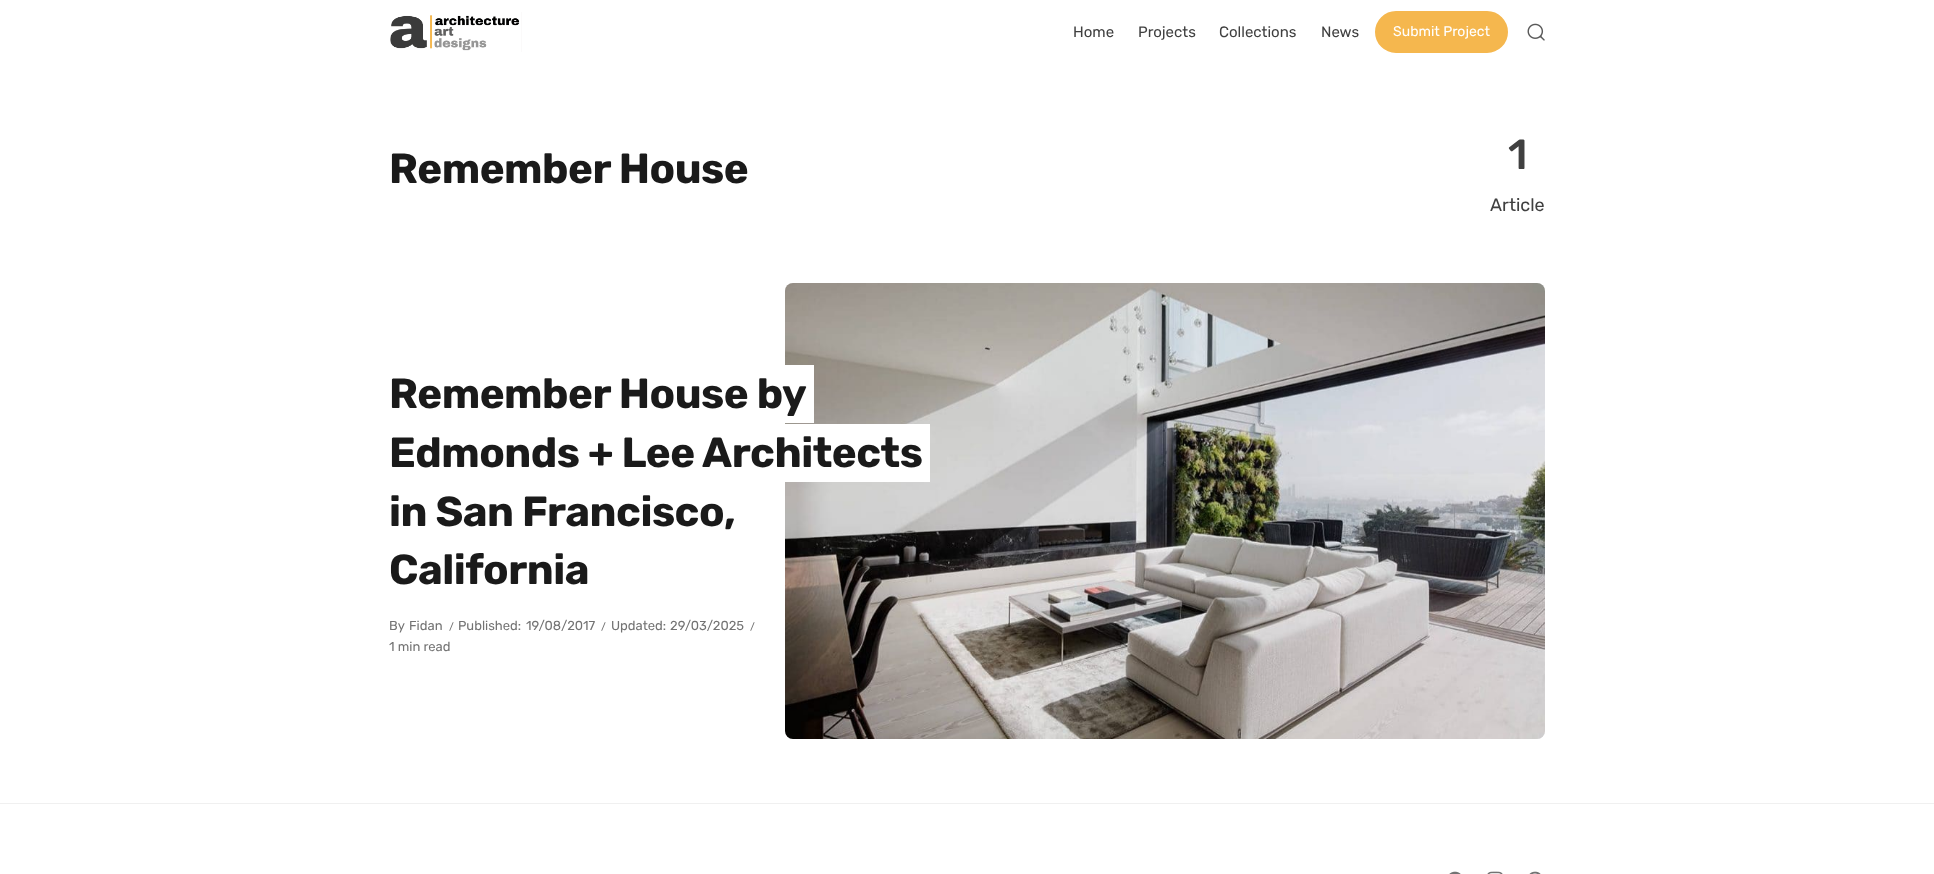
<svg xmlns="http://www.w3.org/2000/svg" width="1934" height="874">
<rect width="100%" height="100%" fill="#fff"/>
<image x="390" y="12" width="132" height="40" href="media/1.png"/>
<text x="1073" y="37" style="font-family:Rubik;font-size:15px;fill:#404040">Home</text>
<text x="1138" y="37" style="font-family:Rubik;font-size:15px;fill:#404040">Projects</text>
<text x="1219" y="37" style="font-family:Rubik;font-size:15px;fill:#404040">Collections</text>
<text x="1321" y="37" style="font-family:Rubik;font-size:15px;fill:#404040">News</text>
<rect x="1376" y="12" width="131" height="40" rx="20" fill="#f5b74e" stroke="#f5b74e" stroke-width="2"/>
<text x="1393" y="36" style="font-family:Rubik;font-size:14px;fill:#fff">Submit Project</text>
<image x="1527" y="23" width="18" height="18" href="media/2.png"/>
<text x="389" y="183" style="font-family:Rubik;font-size:42px;font-weight:bold;letter-spacing:-0.5px;fill:#1a1a1a">Remember House</text>
<text x="1508" y="169" style="font-family:Rubik;font-size:42px;font-weight:500;fill:#404040">1</text>
<text x="1490" y="211" style="font-family:Rubik;font-size:18px;fill:#404040">Article</text>
<rect x="785" y="283" width="760" height="456" rx="8" fill="#f0f0f0"/>
<image x="785" y="283" width="760" height="456" href="media/3.png"/>
<path d="M397 365v4h409v46h8v-50z" fill="#fff"/>
<path d="M397 419v4h417v-50h-8v46z" fill="#fff"/>
<rect x="785" y="369" width="21" height="50" fill="#fff"/>
<text x="389" y="408" style="font-family:Rubik;font-size:42px;font-weight:bold;letter-spacing:-0.5px;fill:#1a1a1a">Remember House by</text>
<path d="M397 424v4h525v46h8v-50z" fill="#fff"/>
<path d="M397 478v4h533v-50h-8v46z" fill="#fff"/>
<rect x="785" y="428" width="137" height="50" fill="#fff"/>
<text x="389" y="467" style="font-family:Rubik;font-size:42px;font-weight:bold;letter-spacing:-0.5px;fill:#1a1a1a">Edmonds + Lee Architects</text>
<text x="389" y="526" style="font-family:Rubik;font-size:42px;font-weight:bold;letter-spacing:-0.5px;fill:#1a1a1a">in San Francisco,</text>
<text x="389" y="584" style="font-family:Rubik;font-size:42px;font-weight:bold;letter-spacing:-0.5px;fill:#1a1a1a">California</text>
<text x="389" y="630" style="font-family:Rubik;font-size:13px;fill:#737373">By</text>
<text x="409" y="630" style="font-family:Rubik;font-size:13px;fill:#737373">Fidan</text>
<text x="449" y="630" style="font-family:Rubik;font-size:10px;fill:#737373">/</text>
<text x="458" y="630" style="font-family:Rubik;font-size:13px;fill:#737373">Published:</text>
<text x="526" y="630" style="font-family:Rubik;font-size:13px;fill:#737373">19/08/2017</text>
<text x="601" y="630" style="font-family:Rubik;font-size:10px;fill:#737373">/</text>
<text x="611" y="630" style="font-family:Rubik;font-size:13px;fill:#737373">Updated:</text>
<text x="670" y="630" style="font-family:Rubik;font-size:13px;fill:#737373">29/03/2025</text>
<text x="750" y="630" style="font-family:Rubik;font-size:10px;fill:#737373">/</text>
<text x="389" y="651" style="font-family:Rubik;font-size:13px;fill:#737373">1 min read</text>
<rect y="803" width="1934" height="1" fill="#f0f0f0"/>
<image x="1449" y="871" width="12" height="3" href="media/4.png"/>
<image x="1487" y="871" width="16" height="3" href="media/5.png"/>
<image x="1529" y="871" width="12" height="3" href="media/6.png"/>
</svg>
